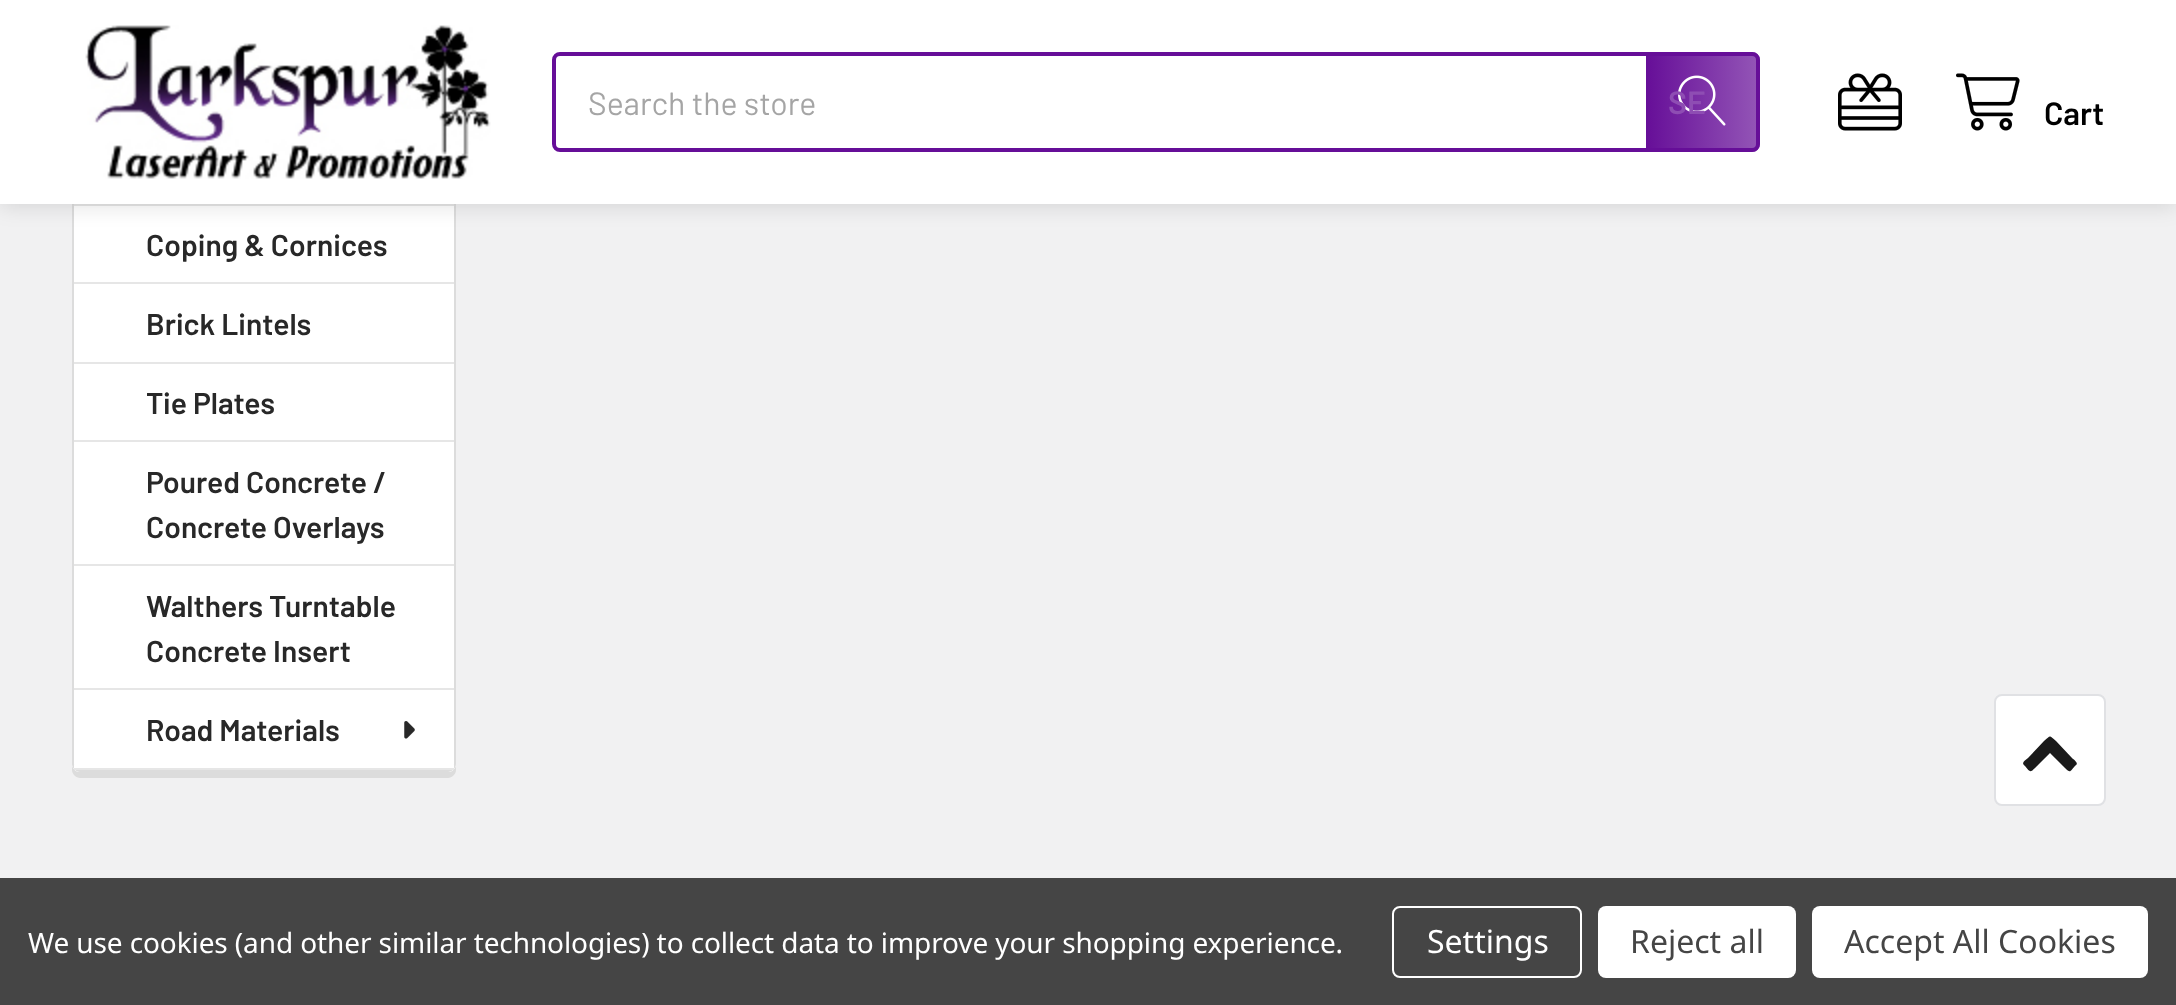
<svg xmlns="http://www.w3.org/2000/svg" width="2176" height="1005">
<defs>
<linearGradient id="g1" gradientUnits="userSpaceOnUse" x1="1646" y1="102" x2="1760" y2="102"><stop offset="0" stop-color="#660e98"/><stop offset="1" stop-color="#660e98" stop-opacity="0.7"/></linearGradient>
</defs>
<rect width="100%" height="100%" fill="#f1f1f2"/>
<path d="M72 764v6c0 4 4 8 8 8h368c4 0 8-4 8-8v-6c0 4-4 8-8 8h-368c-4 0-8-4-8-8z" fill="#dcdcdc"/>
<path d="M72-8h384v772c0 4.5-3.5 8-8 8h-368c-4.5 0-8-3.5-8-8z" fill="#fff"/>
<path d="M72-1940h384v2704c0 4-4 8-8 8h-368c-4 0-8-4-8-8zm2 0h380v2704c0 3-3 6-6 6h-368c-3 0-6-3-6-6z" fill="#dcdcdc" fill-rule="evenodd"/>
<rect x="74" y="204" width="380" height="2" fill="#e6e6e6"/>
<rect y="4" width="2176" height="204" fill="#0000001a" filter="blur(10px)"/>
<rect width="2176" height="204" fill="#fff"/>
<image x="85" y="25" width="406" height="154" href="media/1.png"/>
<rect x="554" y="54" width="1204" height="96" rx="6" fill="none" stroke="#660e98" stroke-width="4"/>
<path d="M1646 52h106c4.5 0 8 3.5 8 8v84c0 4.5-3.5 8-8 8h-106z" fill="url(#g1)"/>
<image x="1678" y="75" width="48" height="51" href="media/2.png"/>
<text x="588" y="115" style="font-family:Barlow;font-size:32px;fill:#a5a5a5">Search the store</text>
<text x="1668" y="114" style="font-family:Barlow;font-size:32px;font-weight:600;fill:#8e4db3">SE</text>
<image x="1838" y="73" width="64" height="58" href="media/3.png"/>
<image x="1956" y="73" width="64" height="58" href="media/4.png"/>
<text x="2044" y="125" style="font-family:Barlow;font-size:32px;font-weight:600;fill:#000">Cart</text>
<rect x="74" y="765" width="380" height="3" fill="#fff"/>
<rect x="74" y="282" width="380" height="2" fill="#e6e6e6"/>
<text x="146" y="256" style="font-family:Barlow;font-size:30px;font-weight:600;fill:#282828">Coping &amp; Cornices</text>
<rect x="74" y="362" width="380" height="2" fill="#e6e6e6"/>
<text x="146" y="335" style="font-family:Barlow;font-size:30px;font-weight:600;fill:#282828">Brick Lintels</text>
<rect x="74" y="440" width="380" height="2" fill="#e6e6e6"/>
<text x="146" y="414" style="font-family:Barlow;font-size:30px;font-weight:600;fill:#282828">Tie Plates</text>
<rect x="74" y="564" width="380" height="2" fill="#e6e6e6"/>
<text x="146" y="493" style="font-family:Barlow;font-size:30px;font-weight:600;fill:#282828">Poured Concrete /</text>
<text x="146" y="538" style="font-family:Barlow;font-size:30px;font-weight:600;fill:#282828">Concrete Overlays</text>
<rect x="74" y="688" width="380" height="2" fill="#e6e6e6"/>
<text x="146" y="617" style="font-family:Barlow;font-size:30px;font-weight:600;fill:#282828">Walthers Turntable</text>
<text x="146" y="662" style="font-family:Barlow;font-size:30px;font-weight:600;fill:#282828">Concrete Insert</text>
<rect x="74" y="768" width="380" height="2" fill="#e6e6e6"/>
<text x="146" y="741" style="font-family:Barlow;font-size:30px;font-weight:600;fill:#282828">Road Materials</text>
<image x="404" y="721" width="11" height="18" href="media/5.png"/>
<rect x="1995" y="695" width="110" height="110" rx="7" fill="#fff" stroke="#e0e1e4" stroke-width="2"/>
<path d="M2076 765c-6 6-5 9-11 3l-15-15l-15 15c-5 5-5 4-10-2c-4-3-1-5 3-8l16-17c7-6 5-6 12 0l16 17c1 1 7 5 4 7z" fill="#1a1a1a"/>
<rect y="878" width="2176" height="127" fill="#454545"/>
<text x="28" y="953" style="font-family:Noto Sans;font-size:28px;letter-spacing:-0.1px;fill:#fff">We use cookies (and other similar technologies) to collect data to improve your shopping experience.</text>
<rect x="1393" y="907" width="188" height="70" rx="7" fill="none" stroke="#fff" stroke-width="2"/>
<text x="1427" y="953" style="font-family:Noto Sans;font-size:32px;fill:#fff">Settings</text>
<rect x="1598" y="906" width="198" height="72" rx="8" fill="#fff"/>
<text x="1630" y="953" style="font-family:Noto Sans;font-size:32px;fill:#454545">Reject all</text>
<rect x="1812" y="906" width="336" height="72" rx="8" fill="#fff"/>
<text x="1844" y="953" style="font-family:Noto Sans;font-size:32px;fill:#454545">Accept All Cookies</text>
</svg>
